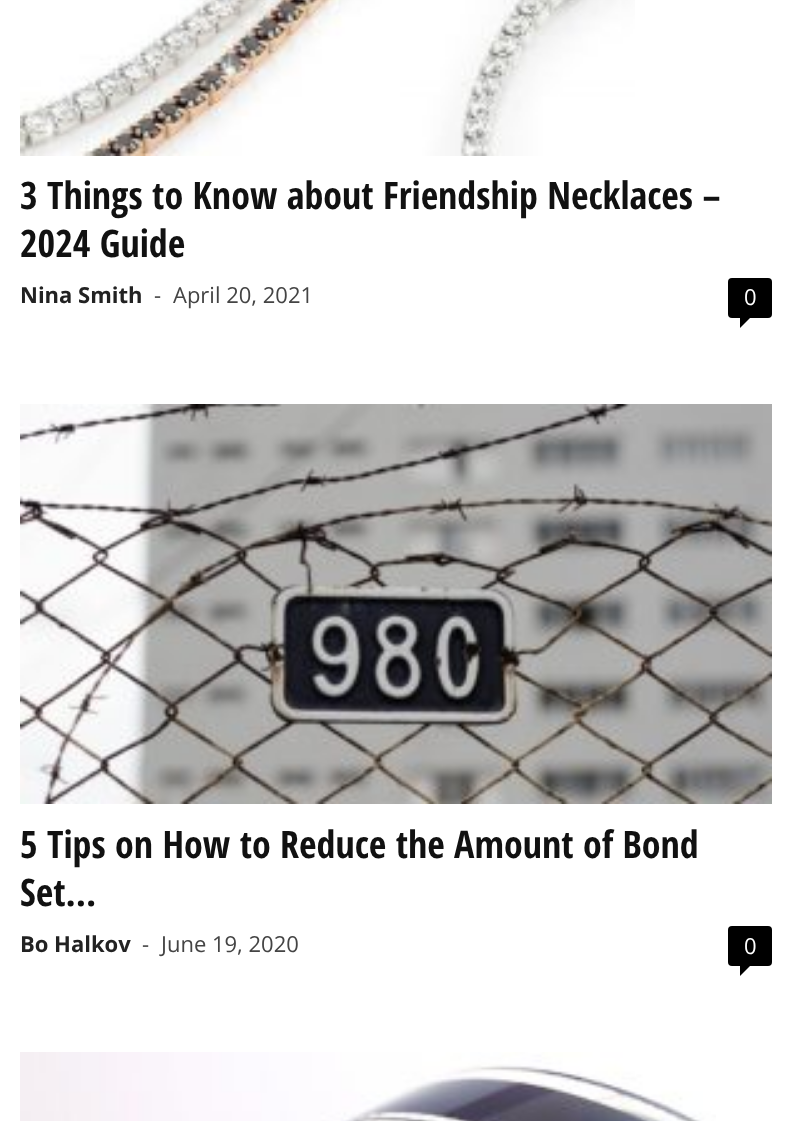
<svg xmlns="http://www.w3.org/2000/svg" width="792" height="1121">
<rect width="100%" height="100%" fill="#fff"/>
<image x="20" y="0" width="615" height="156" href="media/1.png"/>
<text x="20" y="209" style="font-family:Open Sans Condensed;font-size:38px;font-weight:bold;fill:#111">3 Things to Know about Friendship Necklaces –</text>
<text x="20" y="257" style="font-family:Open Sans Condensed;font-size:38px;font-weight:bold;fill:#111">2024 Guide</text>
<text x="20" y="303" style="font-family:Open Sans;font-size:22px;font-weight:bold;fill:#222">Nina Smith</text>
<text x="154" y="303" style="font-family:Open Sans;font-size:22px;fill:#444">-</text>
<text x="173" y="303" style="font-family:Open Sans;font-size:22px;fill:#444">April 20, 2021</text>
<rect x="728" y="278" width="44" height="40" rx="4" fill="#000"/>
<text x="744" y="305" style="font-family:Open Sans;font-size:22px;fill:#fff">0</text>
<path d="M740 318h10l-10 10z" fill="#000"/>
<image x="20" y="404" width="752" height="400" href="media/2.png"/>
<text x="20" y="858" style="font-family:Open Sans Condensed;font-size:38px;font-weight:bold;fill:#111">5 Tips on How to Reduce the Amount of Bond</text>
<text x="20" y="906" style="font-family:Open Sans Condensed;font-size:38px;font-weight:bold;fill:#111">Set...</text>
<text x="20" y="952" style="font-family:Open Sans;font-size:22px;font-weight:bold;fill:#222">Bo Halkov</text>
<text x="142" y="952" style="font-family:Open Sans;font-size:22px;fill:#444">-</text>
<text x="161" y="952" style="font-family:Open Sans;font-size:22px;fill:#444">June 19, 2020</text>
<rect x="728" y="926" width="44" height="40" rx="4" fill="#000"/>
<text x="744" y="954" style="font-family:Open Sans;font-size:22px;fill:#fff">0</text>
<path d="M740 966h10l-10 10z" fill="#000"/>
<image x="20" y="1052" width="696" height="69" href="media/3.png"/>
</svg>
